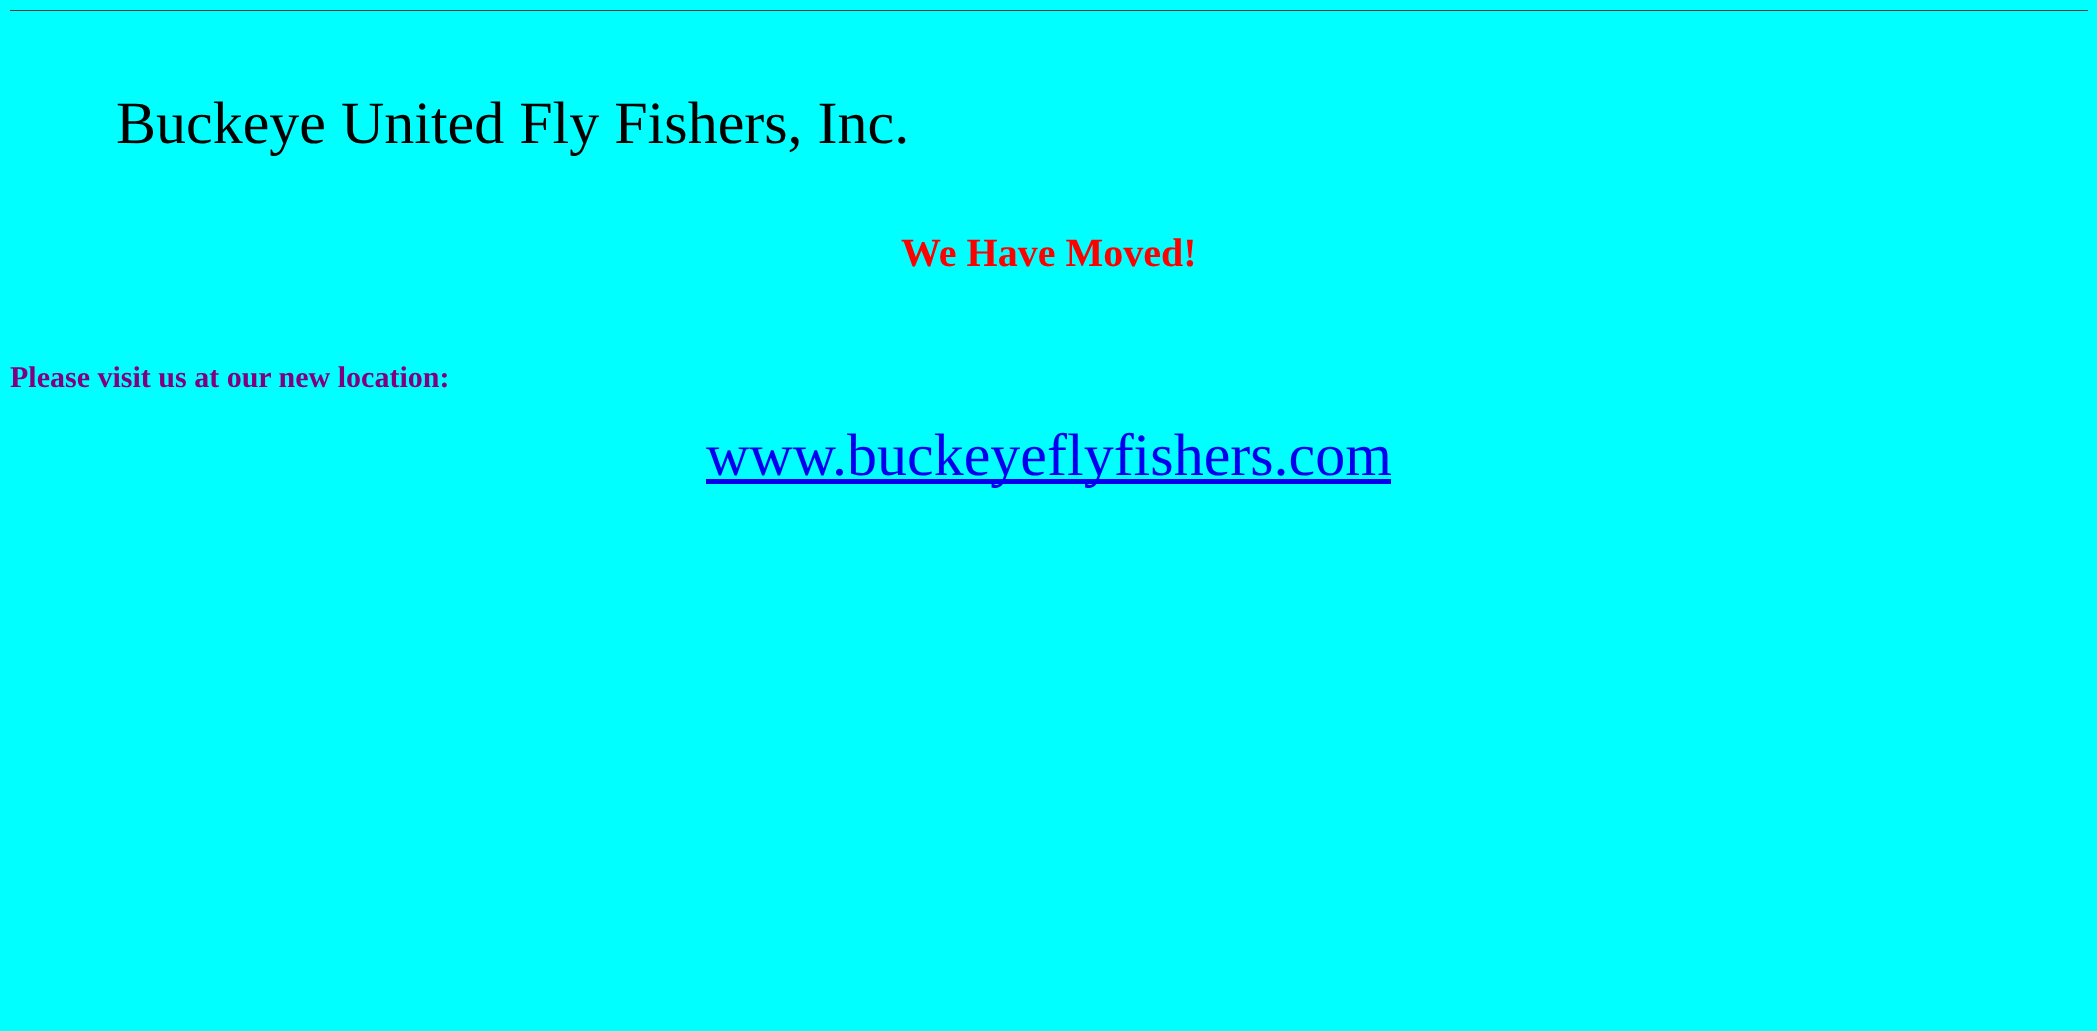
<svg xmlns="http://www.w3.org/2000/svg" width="2097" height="1031">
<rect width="100%" height="100%" fill="#0ff"/>
<rect x="10" y="10" width="2078" height="1" fill="#393939"/>
<text x="116" y="143" style="font-family:Liberation Serif;font-size:60px;fill:#000">Buckeye United Fly Fishers, Inc.</text>
<text x="901" y="266" style="font-family:Liberation Serif;font-size:40px;font-weight:bold;fill:#f00">We Have Moved!</text>
<text x="10" y="387" style="font-family:Liberation Serif;font-size:30px;font-weight:bold;fill:#800080">Please visit us at our new location:</text>
<rect x="706" y="479" width="685" height="5" fill="#00e"/>
<text x="706" y="475" style="font-family:Liberation Serif;font-size:60px;fill:#00e">www.buckeyeflyfishers.com</text>
</svg>
